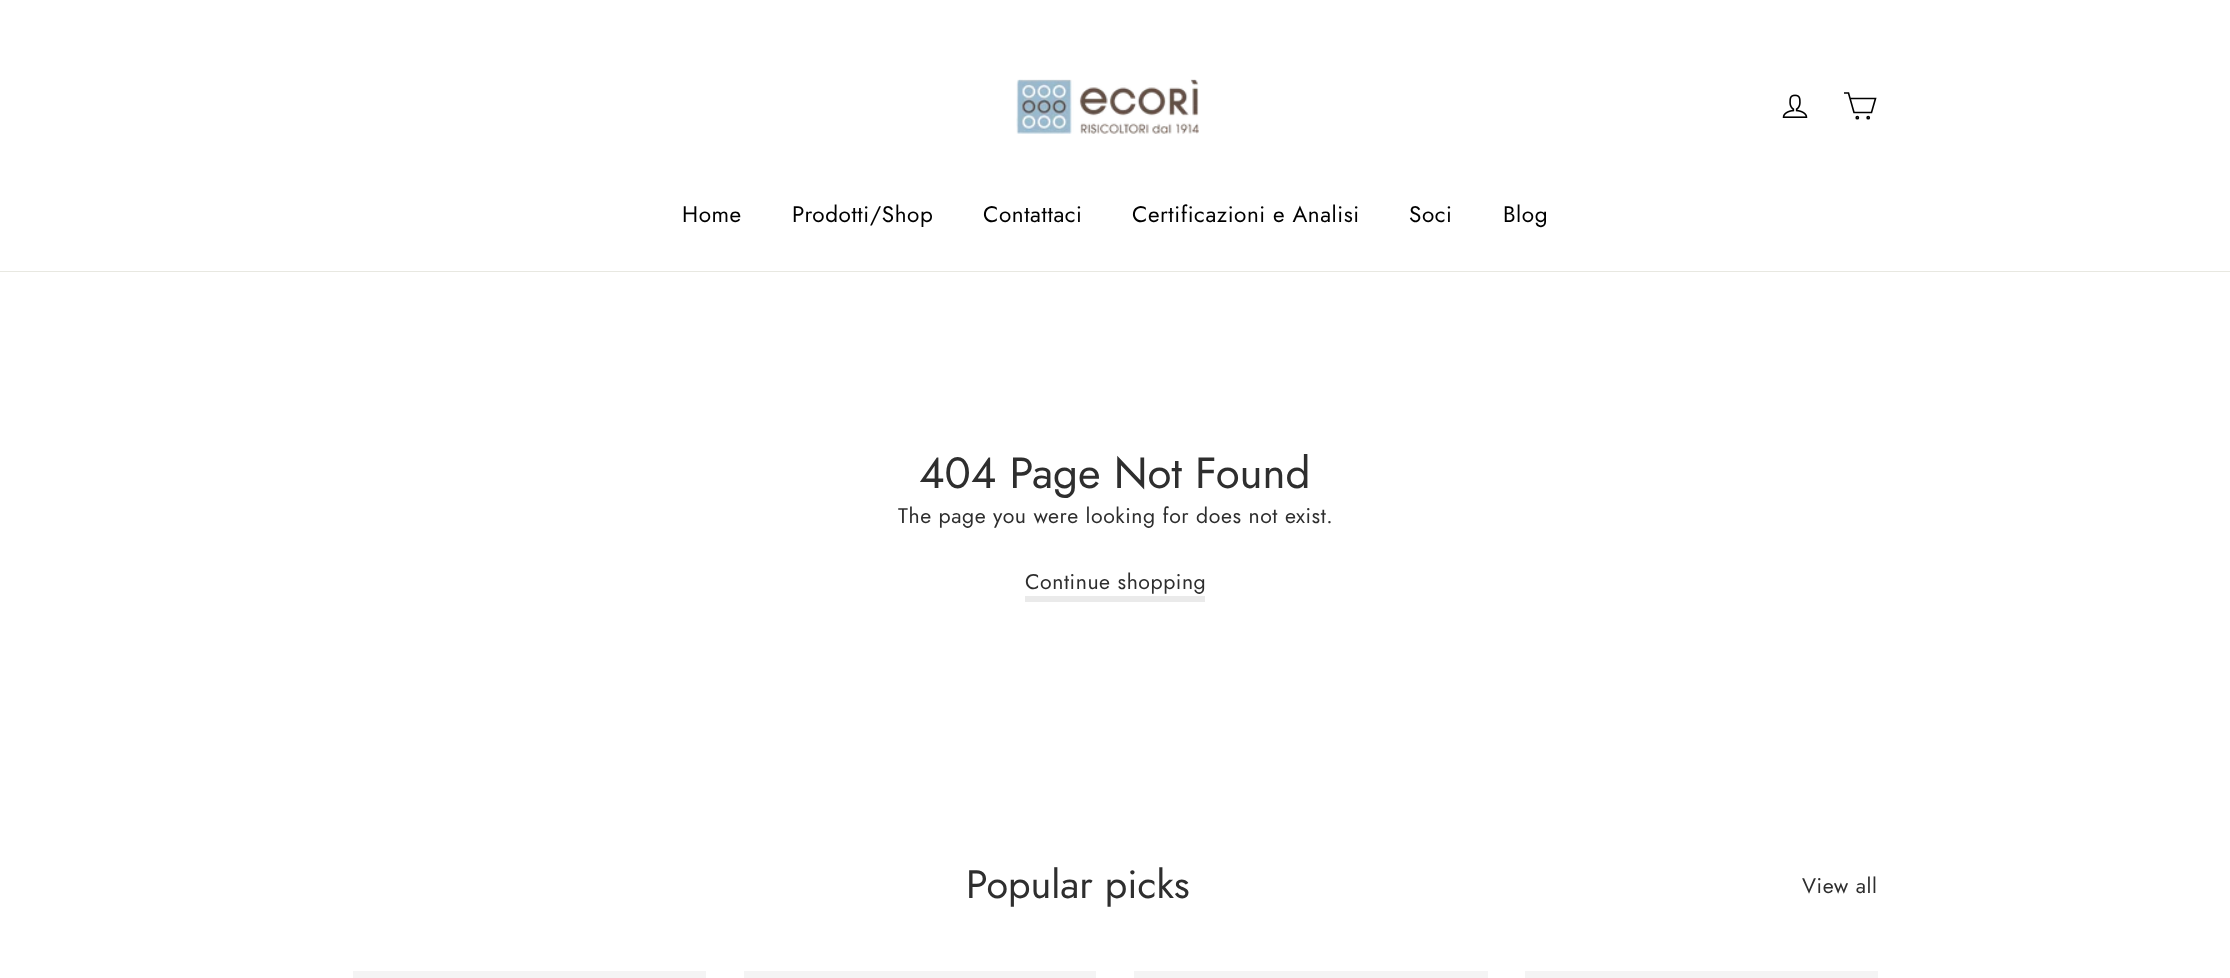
<svg xmlns="http://www.w3.org/2000/svg" width="2230" height="978">
<rect width="100%" height="100%" fill="#fff"/>
<rect y="271" width="2230" height="1" fill="#e8e8e1"/>
<image x="1016" y="79" width="183" height="55" href="media/1.png"/>
<image x="1782" y="94" width="26" height="24" href="media/2.png"/>
<path d="M1850 98.5h25.5l-4 14h-17.5l-5.5-19.5h-4.5" fill="none" stroke="#000" stroke-width="1.6"/>
<circle cx="1857.3" cy="117.7" r="1.1" fill="none" stroke="#000" stroke-width="1.6"/>
<circle cx="1868.2" cy="117.7" r="1.1" fill="none" stroke="#000" stroke-width="1.6"/>
<text x="682" y="222" style="font-family:Jost;font-size:22.5px;letter-spacing:0.55px;fill:#000">Home</text>
<text x="792" y="222" style="font-family:Jost;font-size:22.5px;letter-spacing:0.55px;fill:#000">Prodotti/Shop</text>
<text x="983" y="222" style="font-family:Jost;font-size:22.5px;letter-spacing:0.55px;fill:#000">Contattaci</text>
<text x="1132" y="222" style="font-family:Jost;font-size:22.5px;letter-spacing:0.55px;fill:#000">Certificazioni e Analisi</text>
<text x="1409" y="222" style="font-family:Jost;font-size:22.5px;letter-spacing:0.55px;fill:#000">Soci</text>
<text x="1503" y="222" style="font-family:Jost;font-size:22.5px;letter-spacing:0.55px;fill:#000">Blog</text>
<text x="919" y="488" style="font-family:Jost;font-size:43.75px;fill:#2e2e2e">404 Page Not Found</text>
<text x="898" y="523" style="font-family:Jost;font-size:21.25px;letter-spacing:0.55px;fill:#2e2e2e">The page you were looking for does not exist.</text>
<text x="1025" y="589" style="font-family:Jost;font-size:21.25px;letter-spacing:0.55px;fill:#2e2e2e">Continue shopping</text>
<rect x="1025" y="596" width="180" height="6" fill="#eaeaea"/>
<text x="966" y="898" style="font-family:Jost;font-size:39.5px;fill:#2e2e2e">Popular picks</text>
<text x="1802" y="893" style="font-family:Jost;font-size:21.25px;letter-spacing:0.55px;fill:#2e2e2e">View all</text>
<rect x="353" y="971" width="353" height="7" fill="#f4f4f4"/>
<rect x="744" y="971" width="352" height="7" fill="#f4f4f4"/>
<rect x="1134" y="971" width="354" height="7" fill="#f4f4f4"/>
<rect x="1525" y="971" width="353" height="7" fill="#f4f4f4"/>
</svg>
